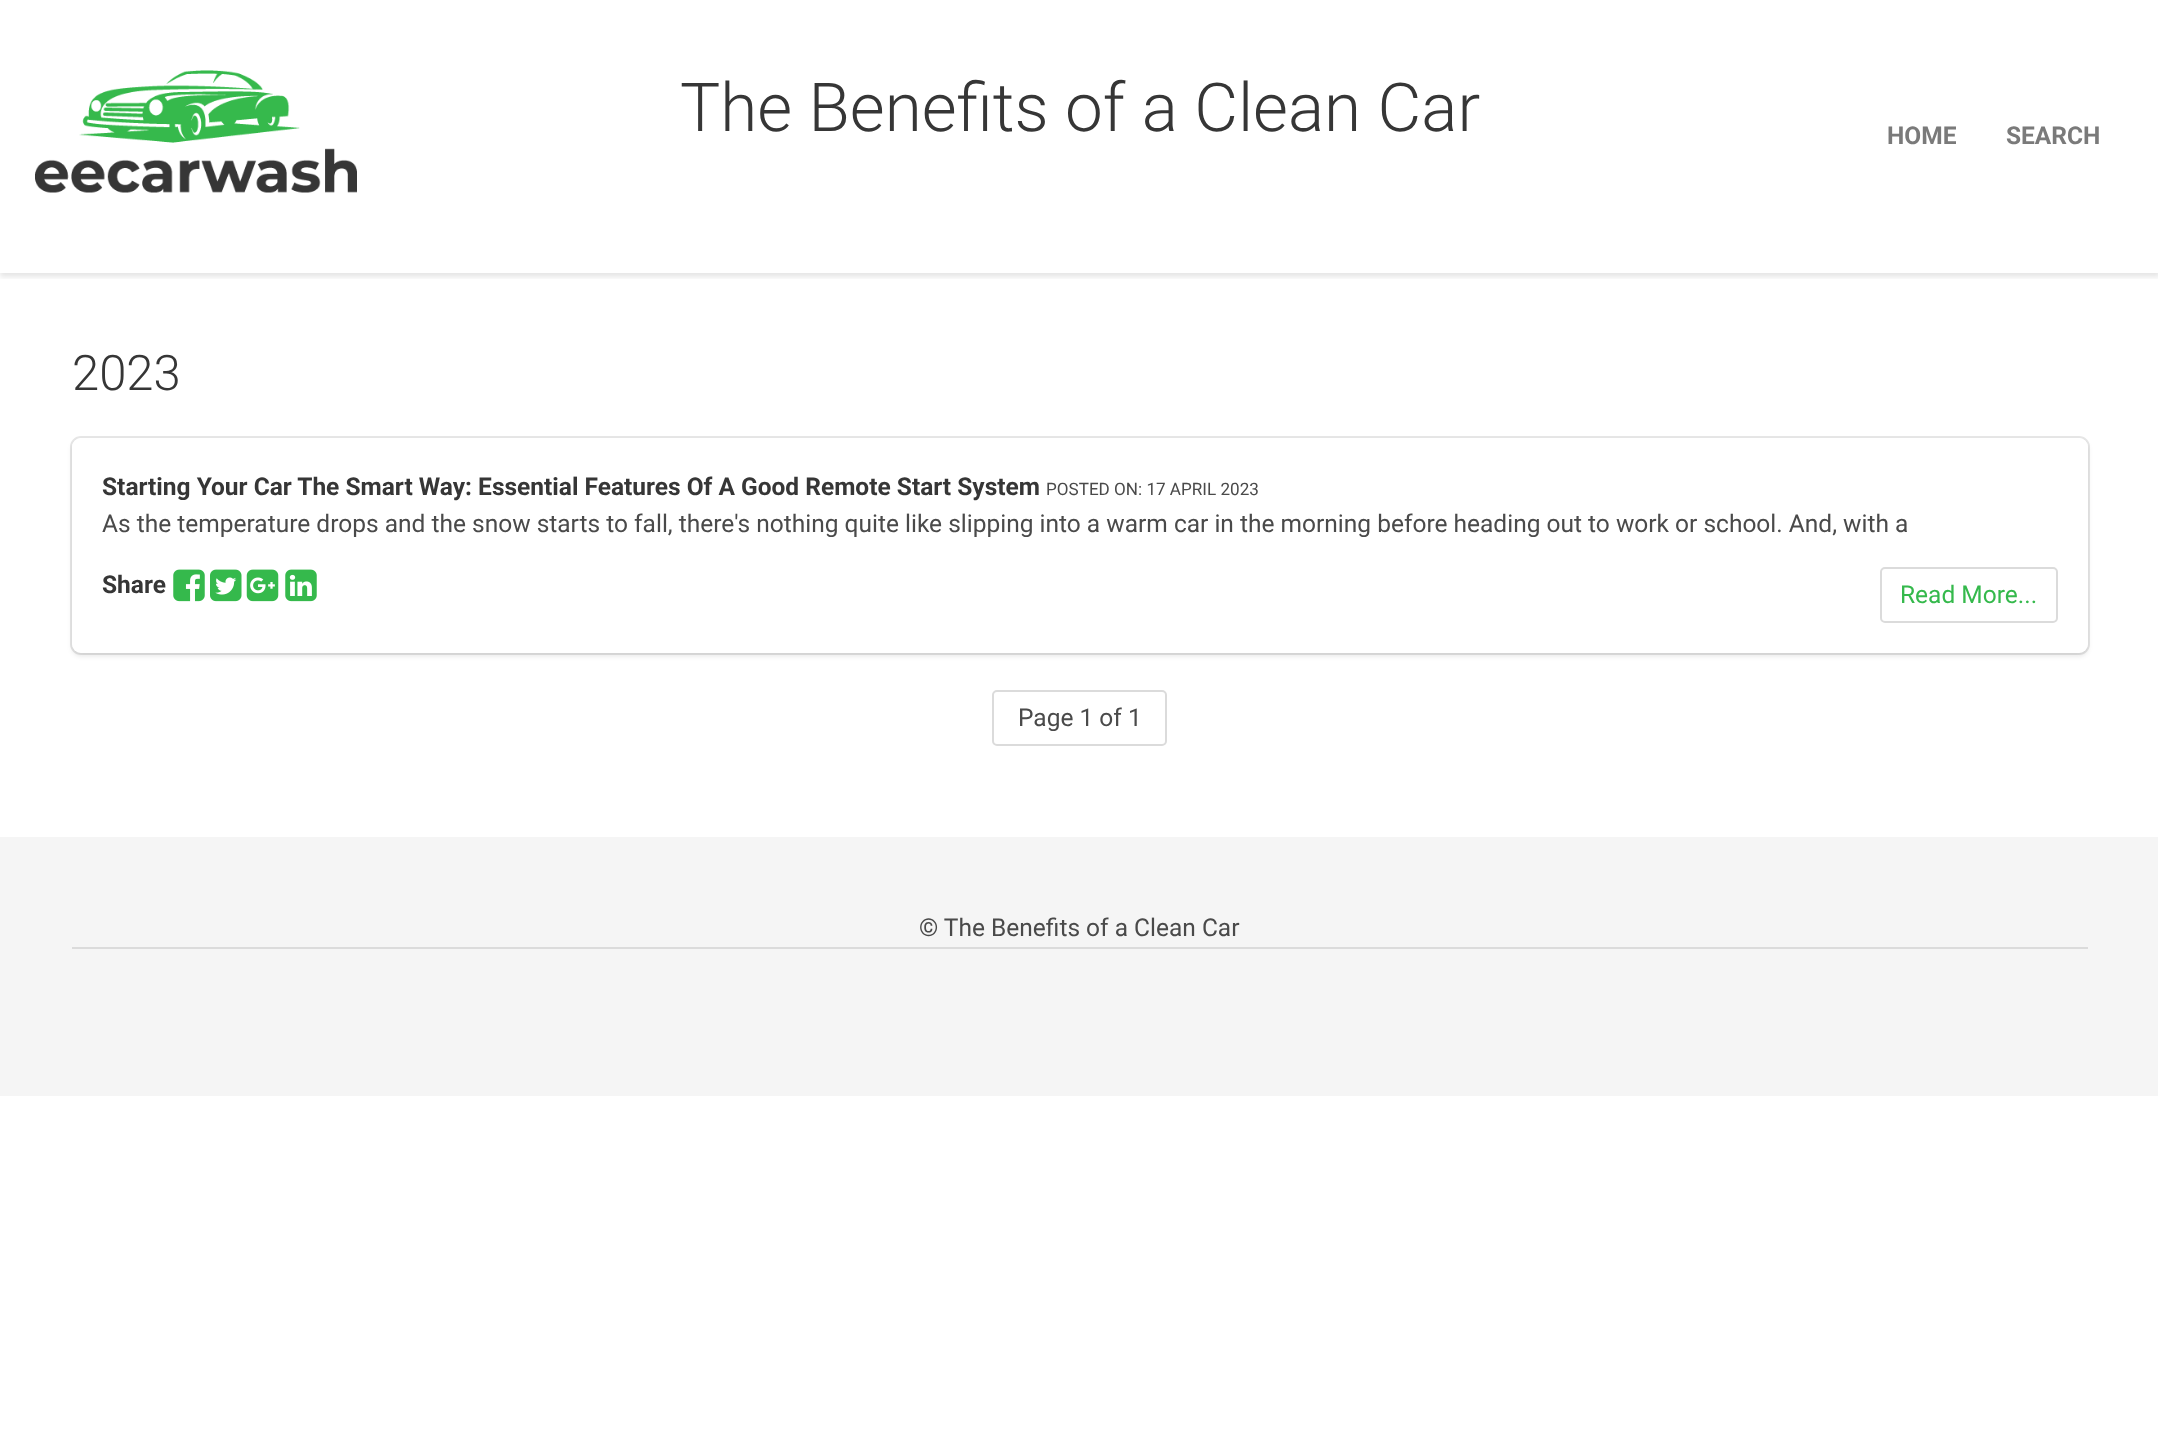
<svg xmlns="http://www.w3.org/2000/svg" width="2158" height="1443">
<defs>
<clipPath id="clip1"><rect x="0" y="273" width="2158" height="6"/></clipPath>
</defs>
<rect width="100%" height="100%" fill="#fff"/>
<g clip-path="url(#clip1)">
<rect y="4" width="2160" height="273" fill="#0a0a0a1a" filter="blur(2.5px)"/>
</g>
<image x="35" y="70" width="322" height="123" href="media/1.png"/>
<text x="680" y="131" style="font-family:Roboto;font-size:67.4px;font-weight:300;fill:#363636">The Benefits of a Clean Car</text>
<text x="1887" y="144" style="font-family:Roboto;font-size:24.5px;font-weight:bold;fill:#7a7a7a">HOME</text>
<text x="2006" y="144" style="font-family:Roboto;font-size:24.5px;font-weight:bold;fill:#7a7a7a">SEARCH</text>
<text x="72" y="390" style="font-family:Roboto;font-size:49px;font-weight:300;fill:#363636">2023</text>
<rect x="71" y="437" width="2018" height="217" rx="10" fill="none" stroke="#e7e7e7" stroke-width="2"/>
<rect x="72" y="441" width="2016" height="215" rx="9" fill="#0a0a0a1a" filter="blur(2.5px)"/>
<rect x="72" y="438" width="2016" height="215" rx="9" fill="#fff"/>
<text x="102" y="495" style="font-family:Roboto;font-size:24.5px;font-weight:bold;fill:#363636">Starting Your Car The Smart Way: Essential Features Of A Good Remote Start System</text>
<text x="1046" y="495" style="font-family:Roboto;font-size:17.1px;fill:#4a4a4a">POSTED ON: 17 APRIL 2023</text>
<text x="102" y="532" style="font-family:Roboto;font-size:24.5px;fill:#4a4a4a">As the temperature drops and the snow starts to fall, there's nothing quite like slipping into a warm car in the morning before heading out to work or school. And, with a</text>
<rect x="1881" y="568" width="176" height="54" rx="4" fill="none" stroke="#dbdbdb" stroke-width="2"/>
<text x="1900" y="603" style="font-family:Roboto;font-size:24.5px;fill:#35b94c">Read More...</text>
<text x="102" y="593" style="font-family:Roboto;font-size:24.5px;font-weight:bold;fill:#363636">Share</text>
<image x="173" y="569" width="32" height="33" href="media/2.png"/>
<image x="210" y="569" width="32" height="33" href="media/3.png"/>
<image x="246" y="569" width="33" height="33" href="media/4.png"/>
<image x="285" y="569" width="32" height="33" href="media/5.png"/>
<rect x="993" y="691" width="173" height="54" rx="4" fill="none" stroke="#dbdbdb" stroke-width="2"/>
<text x="1018" y="726" style="font-family:Roboto;font-size:24.5px;fill:#4a4a4a">Page 1 of 1</text>
<rect y="837" width="2158" height="259" fill="#f5f5f5"/>
<rect x="72" y="947" width="2016" height="2" fill="#dbdbdb"/>
<text x="919" y="936" style="font-family:Roboto;font-size:24.5px;fill:#4a4a4a">© The Benefits of a Clean Car</text>
</svg>
